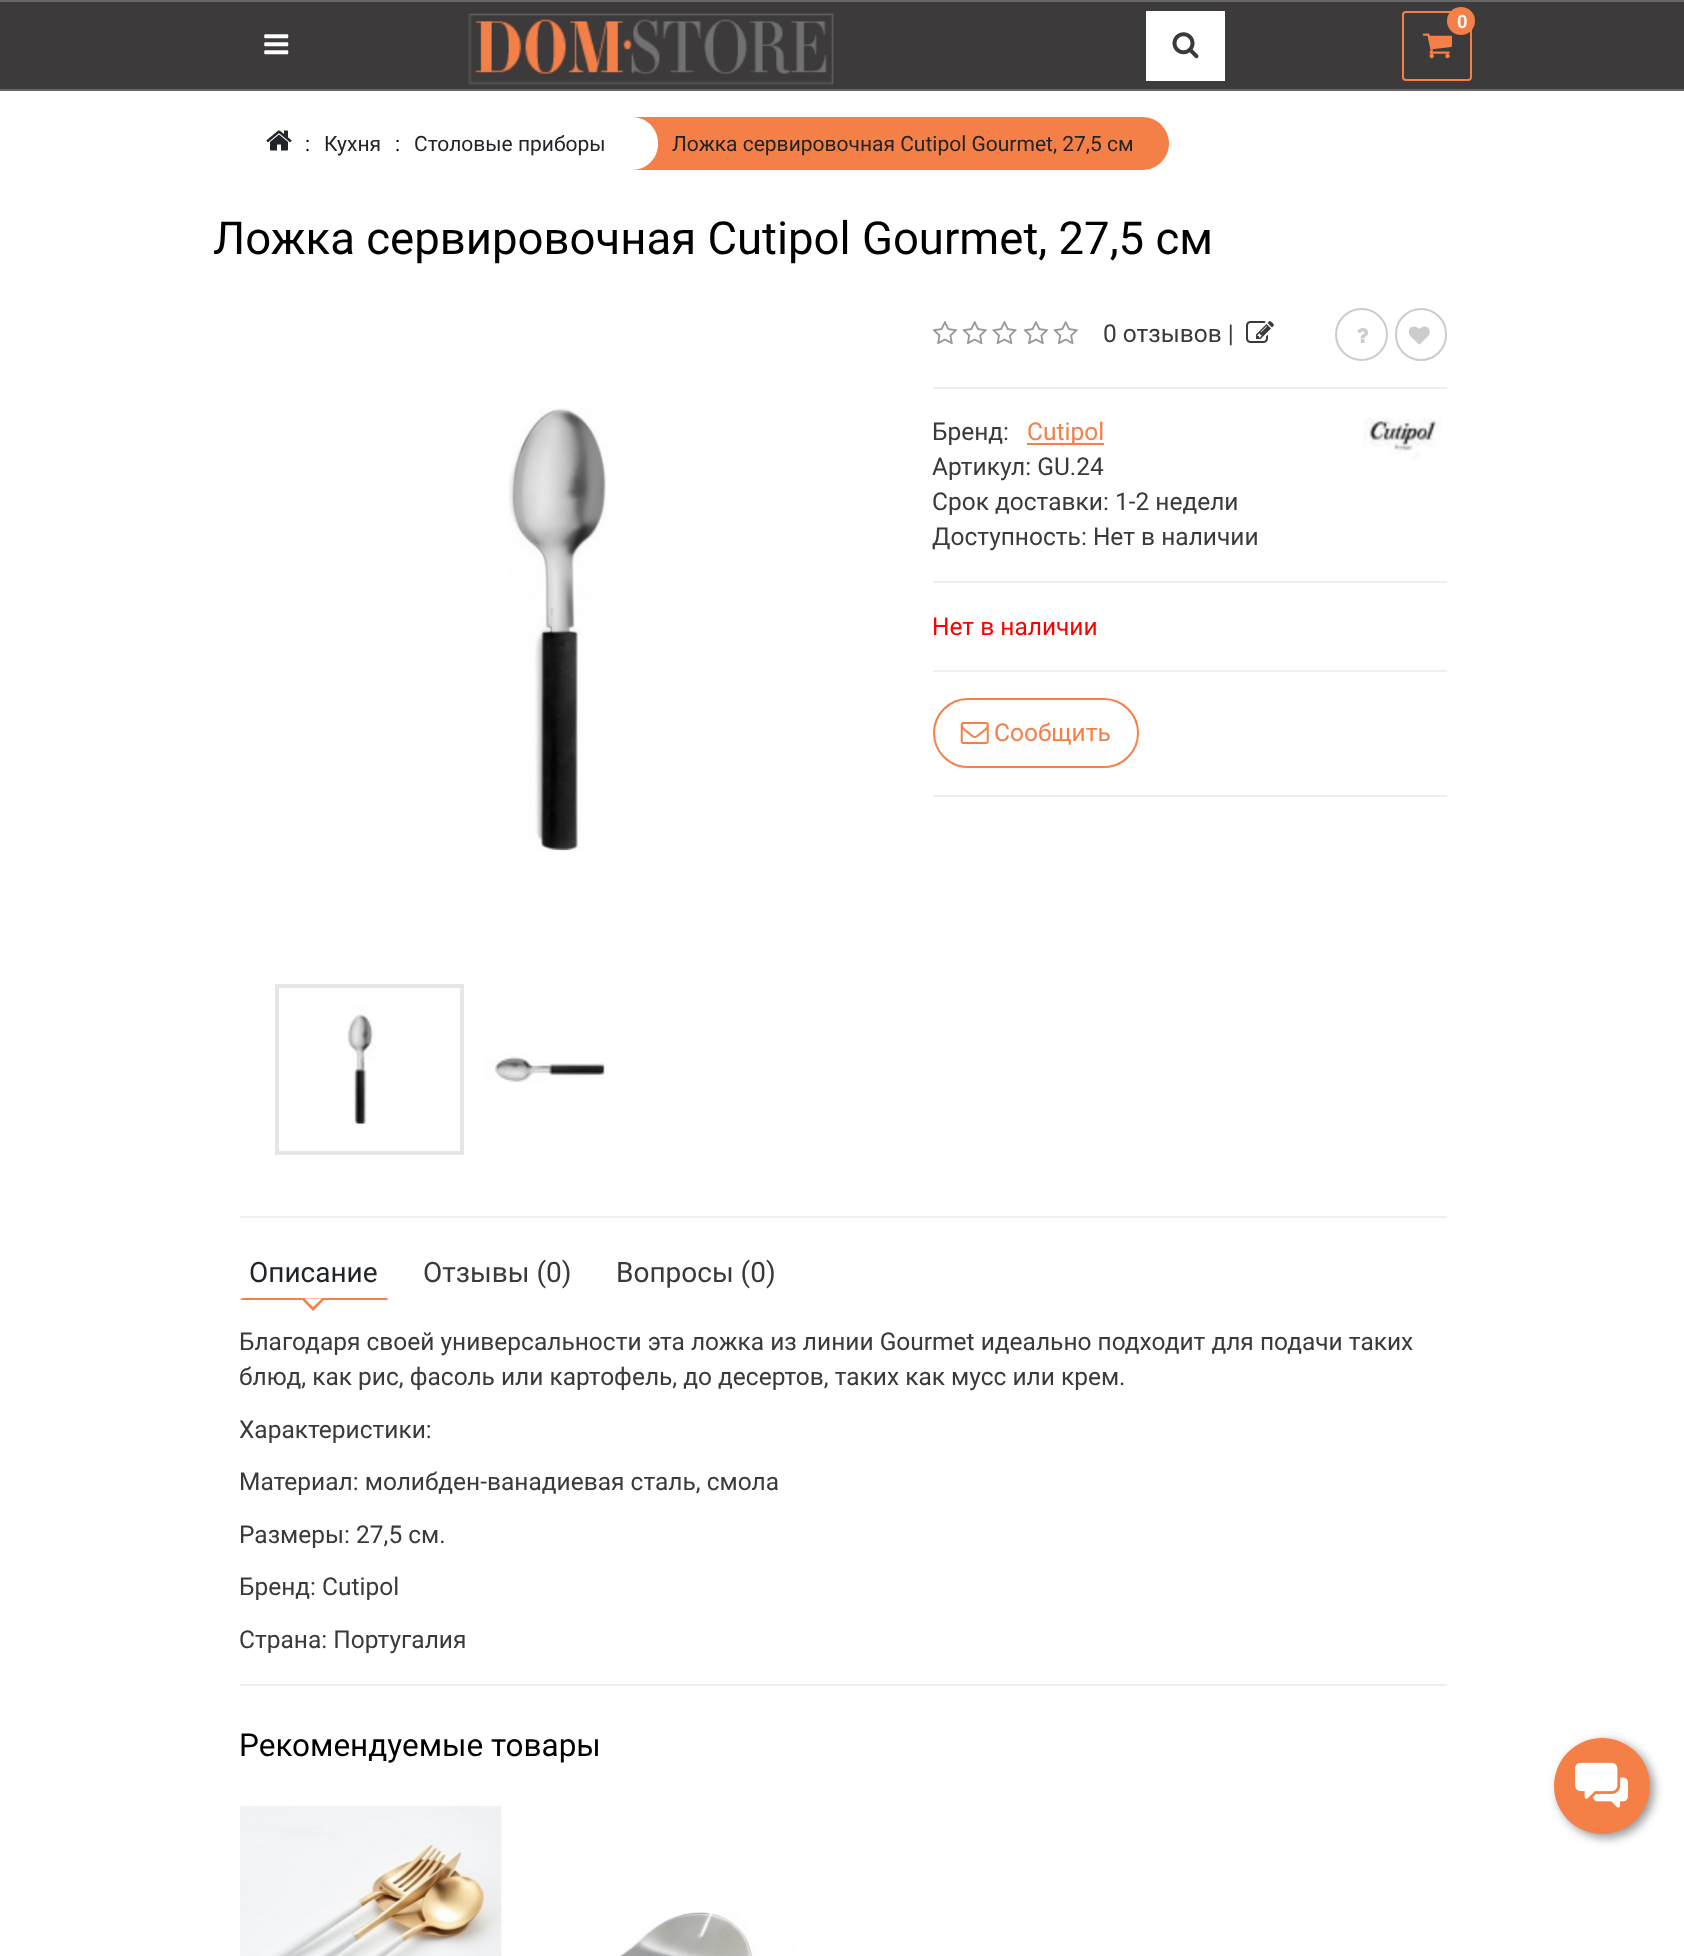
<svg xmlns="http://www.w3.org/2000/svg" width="1684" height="1956">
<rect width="100%" height="100%" fill="#fff"/>
<rect y="2" width="1684" height="87" fill="#3c3a3a"/>
<rect width="1684" height="2" fill="#666"/>
<rect y="89" width="1684" height="2" fill="#666"/>
<image x="468" y="13" width="366" height="72" href="media/1.png"/>
<rect x="1146" y="11" width="79" height="70" fill="#fff"/>
<image x="1172" y="32" width="27" height="27" href="media/2.png"/>
<rect x="1403" y="12" width="68" height="68" rx="3" fill="none" stroke="#f48047" stroke-width="2"/>
<image x="1422" y="33" width="30" height="26" href="media/3.png"/>
<circle cx="1461" cy="21" r="14" fill="#f48047"/>
<text x="1457" y="28" style="font-family:Liberation Sans;font-size:19px;font-weight:bold;fill:#faf5f5">0</text>
<image x="264" y="34" width="25" height="21" href="media/4.png"/>
<image x="266" y="130" width="26" height="21" href="media/5.png"/>
<text x="305" y="151" style="font-family:Roboto;font-size:21px;fill:#000">:</text>
<text x="324" y="151" style="font-family:Roboto;font-size:21px;fill:#212529">Кухня</text>
<text x="395" y="151" style="font-family:Roboto;font-size:21px;fill:#000">:</text>
<text x="414" y="151" style="font-family:Roboto;font-size:21px;fill:#212529">Столовые приборы</text>
<path d="M620 117h522.5c14.5 0 26.5 12 26.5 26.5c0 14.5-12 26.5-26.5 26.5h-522.5z" fill="#f48047"/>
<path d="M606 117h26c14.5 0 26 11.5 26 26v1c0 14.5-11.5 26-26 26h-26z" fill="#fff"/>
<text x="672" y="151" style="font-family:Roboto;font-size:21px;fill:#212529">Ложка сервировочная Cutipol Gourmet, 27,5 см</text>
<text x="213" y="254" style="font-family:Roboto;font-size:45.5px;fill:#000">Ложка сервировочная Cutipol Gourmet, 27,5 см</text>
<image x="508" y="408" width="99" height="443" href="media/6.png"/>
<rect x="277" y="986" width="185" height="167" fill="none" stroke="#e6e6e6" stroke-width="4"/>
<image x="346" y="1005" width="30" height="122" href="media/7.png"/>
<image x="485" y="1054" width="120" height="29" href="media/8.png"/>
<image x="933" y="321" width="24" height="24" href="media/9.png"/>
<image x="962" y="321" width="25" height="24" href="media/10.png"/>
<image x="992" y="321" width="25" height="24" href="media/11.png"/>
<image x="1023" y="321" width="25" height="24" href="media/12.png"/>
<image x="1053" y="321" width="25" height="24" href="media/10.png"/>
<text x="1103" y="342" style="font-family:Roboto;font-size:24.5px;fill:#3a3a3a">0 отзывов |</text>
<image x="1246" y="321" width="28" height="22" href="media/13.png"/>
<circle cx="1361.5" cy="334.5" r="25.5" fill="none" stroke="#ccc" stroke-width="2"/>
<image x="1357" y="328" width="12" height="15" href="media/14.png"/>
<rect x="1396" y="309" width="50" height="51" rx="25" fill="none" stroke="#ccc" stroke-width="2"/>
<image x="1408" y="326" width="22" height="19" href="media/15.png"/>
<rect x="933" y="387" width="514" height="2" fill="#eee"/>
<text x="932" y="440" style="font-family:Roboto;font-size:24.5px;fill:#3a3a3a">Бренд:</text>
<rect x="1027" y="443" width="77" height="2" fill="#f48047"/>
<text x="1027" y="440" style="font-family:Roboto;font-size:24.5px;fill:#f48047">Cutipol</text>
<image x="1363" y="418" width="78" height="41" href="media/16.png"/>
<text x="932" y="475" style="font-family:Roboto;font-size:24.5px;fill:#3a3a3a">Артикул: GU.24</text>
<text x="932" y="510" style="font-family:Roboto;font-size:24.5px;fill:#3a3a3a">Срок доставки: 1-2 недели</text>
<text x="932" y="545" style="font-family:Roboto;font-size:24.5px;fill:#3a3a3a">Доступность: Нет в наличии</text>
<rect x="933" y="581" width="514" height="2" fill="#eee"/>
<text x="932" y="635" style="font-family:Roboto;font-size:24.5px;fill:#f00">Нет в наличии</text>
<rect x="933" y="670" width="514" height="2" fill="#eee"/>
<rect x="934" y="699" width="204" height="68" rx="34" fill="none" stroke="#f48047" stroke-width="2"/>
<image x="960" y="722" width="29" height="22" href="media/17.png"/>
<text x="994" y="741" style="font-family:Roboto;font-size:24.5px;fill:#f48047">Сообщить</text>
<rect x="933" y="795" width="514" height="2" fill="#eee"/>
<rect x="240" y="1216" width="1207" height="2" fill="#eee"/>
<path d="M388 1300h-148l2-2h145z" fill="#f48047"/>
<text x="249" y="1282" style="font-family:Roboto;font-size:28px;fill:#212529">Описание</text>
<path d="M301 1298.5h24.5l-12.5 12.5z" fill="#f48047"/>
<path d="M304.5 1298.5h17.5l-9 8.5z" fill="#fff"/>
<text x="423" y="1282" style="font-family:Roboto;font-size:28px;fill:#3a3a3a">Отзывы (0)</text>
<text x="616" y="1282" style="font-family:Roboto;font-size:28px;fill:#3a3a3a">Вопросы (0)</text>
<text x="239" y="1350" style="font-family:Roboto;font-size:24.5px;fill:#3a3a3a">Благодаря своей универсальности эта ложка из линии Gourmet идеально подходит для подачи таких</text>
<text x="239" y="1385" style="font-family:Roboto;font-size:24.5px;fill:#3a3a3a">блюд, как рис, фасоль или картофель, до десертов, таких как мусс или крем.</text>
<text x="239" y="1438" style="font-family:Roboto;font-size:24.5px;fill:#3a3a3a">Характеристики:</text>
<text x="239" y="1490" style="font-family:Roboto;font-size:24.5px;fill:#3a3a3a">Материал: молибден-ванадиевая сталь, смола</text>
<text x="239" y="1543" style="font-family:Roboto;font-size:24.5px;fill:#3a3a3a">Размеры: 27,5 см.</text>
<text x="239" y="1595" style="font-family:Roboto;font-size:24.5px;fill:#3a3a3a">Бренд: Cutipol</text>
<text x="239" y="1648" style="font-family:Roboto;font-size:24.5px;fill:#3a3a3a">Страна: Португалия</text>
<rect x="240" y="1684" width="1207" height="2" fill="#eee"/>
<text x="239" y="1756" style="font-family:Roboto;font-size:31.5px;fill:#000">Рекомендуемые товары</text>
<image x="240" y="1806" width="262" height="150" href="media/18.png"/>
<image x="619" y="1911" width="176" height="45" href="media/19.png"/>
<rect x="1558" y="1741" width="96" height="97" rx="48" fill="#00000066" filter="blur(5px)"/>
<circle cx="1602" cy="1786" r="48" fill="#f48047"/>
<image x="1575" y="1762" width="53" height="46" href="media/20.png"/>
</svg>
